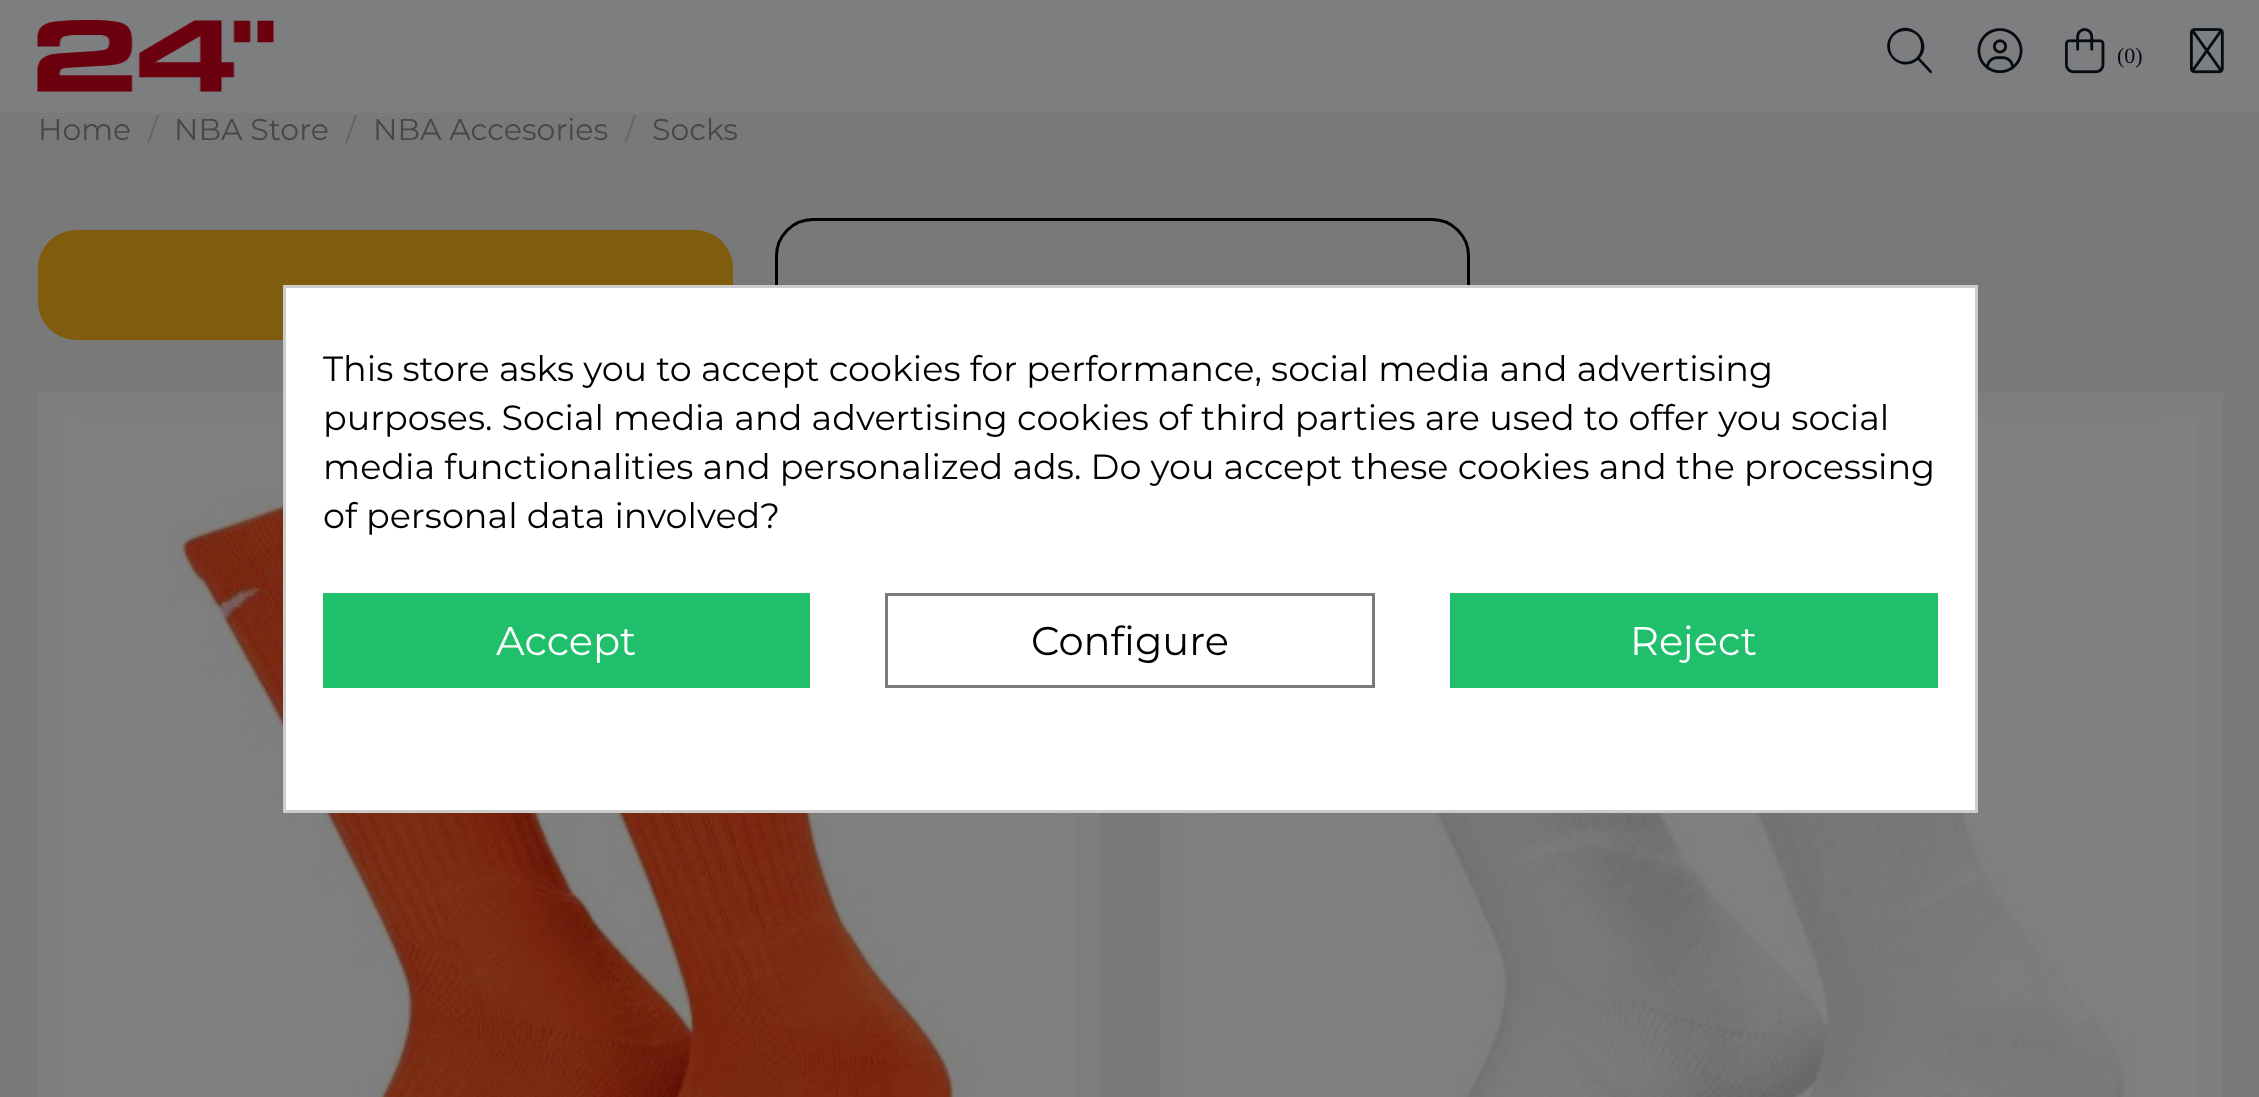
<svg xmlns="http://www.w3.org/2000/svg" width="2259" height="1097">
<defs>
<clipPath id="clip1"><rect x="323" y="348" width="1615" height="195"/></clipPath>
</defs>
<rect width="100%" height="100%" fill="#797979"/>
<rect width="2259" height="113" fill="#7d7e7f"/>
<image x="37" y="20" width="237" height="72" href="media/1.png"/>
<path d="M1921 46c0-20-31-20-31 0c0 21 31 21 31 0zm-3 14c-18 15-42-10-25-27c16-16 42 8 27 25c1 2 13 13 12 14c0 1-1 1-2 1z" fill="#080c10"/>
<image x="1977" y="28" width="46" height="46" href="media/2.png"/>
<image x="2065" y="28" width="40" height="46" href="media/3.png"/>
<text x="2117" y="63" style="font-family:Liberation Serif;font-size:22px;fill:#080c10">(0)</text>
<image x="2190" y="28" width="34" height="46" href="media/4.png"/>
<text x="38" y="140" style="font-family:Montserrat;font-size:30px;fill:#484848">Home</text>
<text x="148" y="140" style="font-family:Montserrat;font-size:30px;fill:#656565">/</text>
<text x="174" y="140" style="font-family:Montserrat;font-size:30px;fill:#484848">NBA Store</text>
<text x="346" y="140" style="font-family:Montserrat;font-size:30px;fill:#656565">/</text>
<text x="373" y="140" style="font-family:Montserrat;font-size:30px;fill:#484848">NBA Accesories</text>
<text x="625" y="140" style="font-family:Montserrat;font-size:30px;fill:#656565">/</text>
<text x="652" y="140" style="font-family:Montserrat;font-size:30px;fill:#484848">Socks</text>
<rect x="38" y="230" width="695" height="110" rx="38" fill="#805c0e"/>
<rect x="776.5" y="219.5" width="692" height="132" rx="36.5" fill="none" stroke="#000" stroke-width="3"/>
<rect x="38" y="393" width="1062" height="704" fill="#7d7e7f"/>
<image x="63" y="417" width="1012" height="680" href="media/5.png"/>
<rect x="1160" y="393" width="1063" height="704" fill="#7d7e7f"/>
<image x="1185" y="418" width="1012" height="679" href="media/6.png"/>
<rect x="284.5" y="286.5" width="1692" height="525" fill="#fff" stroke="#ccc" stroke-width="3"/>
<g clip-path="url(#clip1)">
<text x="323" y="381" style="font-family:Montserrat;font-size:35px;fill:#000">This store asks you to accept cookies for performance, social media and advertising</text>
</g>
<text x="323" y="430" style="font-family:Montserrat;font-size:35px;fill:#000">purposes. Social media and advertising cookies of third parties are used to offer you social</text>
<text x="323" y="479" style="font-family:Montserrat;font-size:35px;fill:#000">media functionalities and personalized ads. Do you accept these cookies and the processing</text>
<text x="323" y="528" style="font-family:Montserrat;font-size:35px;fill:#000">of personal data involved?</text>
<rect x="323" y="593" width="487" height="95" fill="#20bf6b"/>
<text x="496" y="655" style="font-family:Montserrat;font-size:40px;fill:#fff">Accept</text>
<rect x="886.5" y="594.5" width="487" height="92" fill="none" stroke="#7a7a7a" stroke-width="3"/>
<text x="1031" y="655" style="font-family:Montserrat;font-size:40px;fill:#000">Configure</text>
<rect x="1450" y="593" width="488" height="95" fill="#20bf6b"/>
<text x="1630" y="655" style="font-family:Montserrat;font-size:40px;fill:#fff">Reject</text>
</svg>
